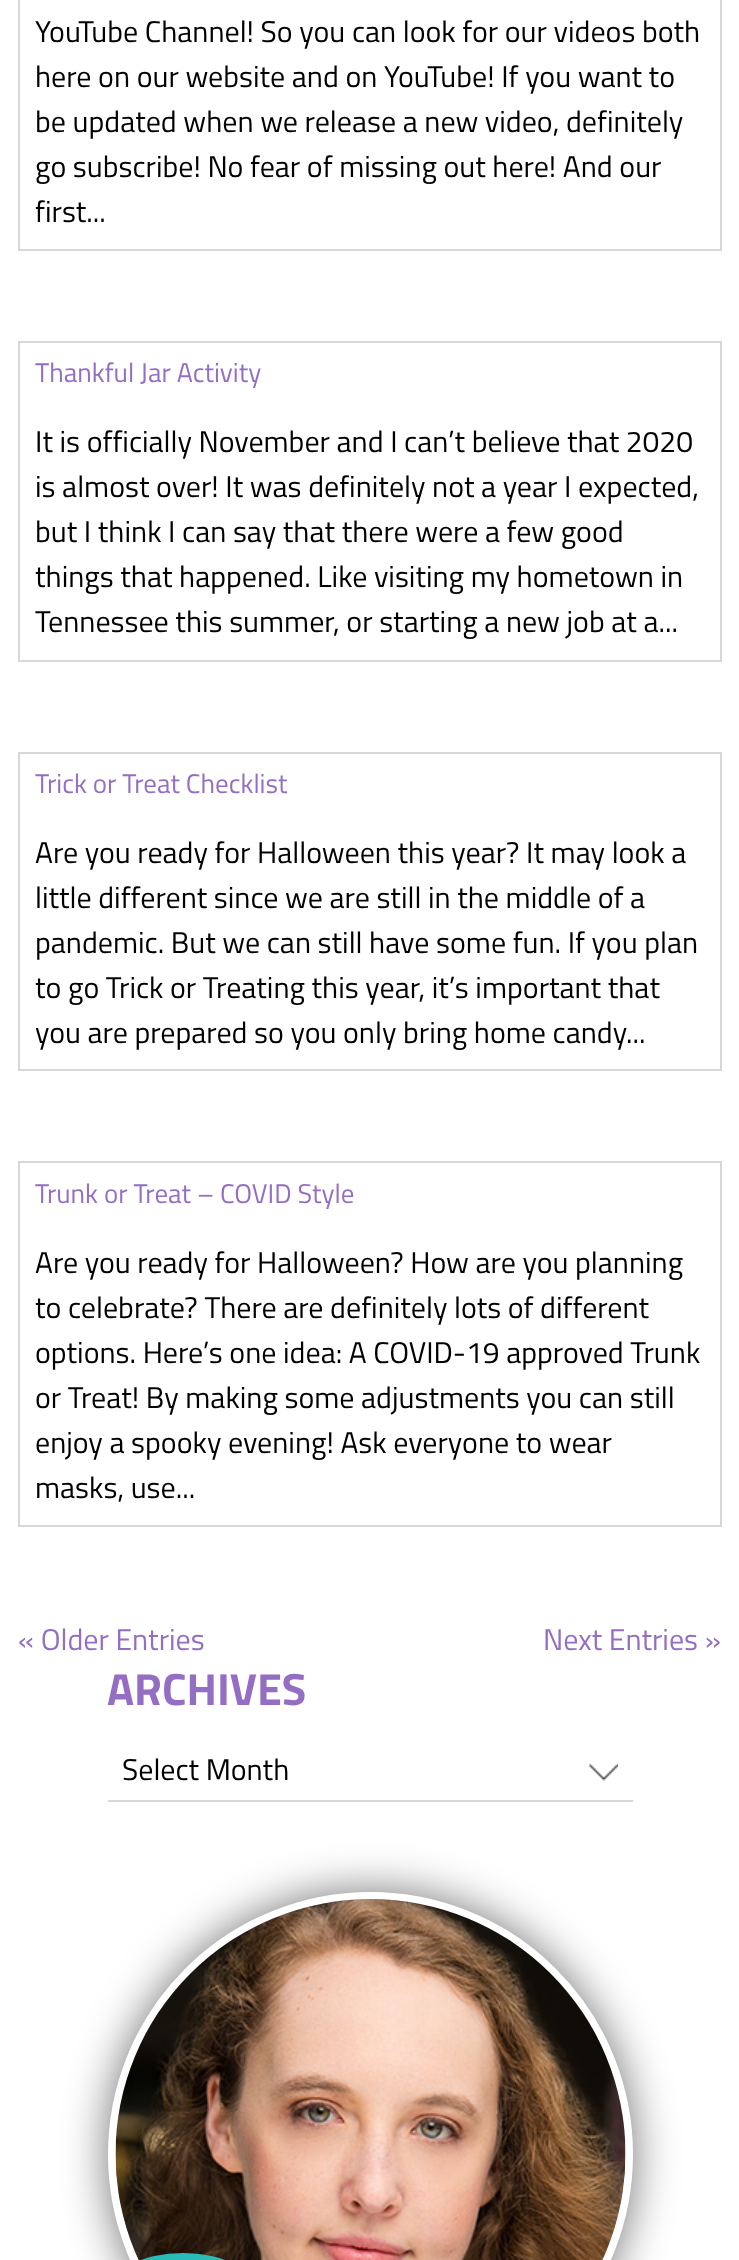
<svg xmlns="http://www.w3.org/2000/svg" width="739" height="2260">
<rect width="100%" height="100%" fill="#fff"/>
<rect x="19" y="-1" width="702" height="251" fill="none" stroke="#d7d7d7" stroke-width="2"/>
<text x="35" y="42" style="font-family:Titillium Web;font-size:30px;fill:#000">YouTube Channel! So you can look for our videos both</text>
<text x="35" y="87" style="font-family:Titillium Web;font-size:30px;fill:#000">here on our website and on YouTube! If you want to</text>
<text x="35" y="132" style="font-family:Titillium Web;font-size:30px;fill:#000">be updated when we release a new video, definitely</text>
<text x="35" y="177" style="font-family:Titillium Web;font-size:30px;fill:#000">go subscribe! No fear of missing out here! And our</text>
<text x="35" y="222" style="font-family:Titillium Web;font-size:30px;fill:#000">first...</text>
<rect x="19" y="342" width="702" height="319" fill="none" stroke="#d7d7d7" stroke-width="2"/>
<text x="35" y="382" style="font-family:Titillium Web;font-size:27px;fill:#946ec3">Thankful Jar Activity</text>
<text x="35" y="452" style="font-family:Titillium Web;font-size:30px;fill:#000">It is officially November and I can’t believe that 2020</text>
<text x="35" y="497" style="font-family:Titillium Web;font-size:30px;fill:#000">is almost over! It was definitely not a year I expected,</text>
<text x="35" y="542" style="font-family:Titillium Web;font-size:30px;fill:#000">but I think I can say that there were a few good</text>
<text x="35" y="587" style="font-family:Titillium Web;font-size:30px;fill:#000">things that happened. Like visiting my hometown in</text>
<text x="35" y="632" style="font-family:Titillium Web;font-size:30px;fill:#000">Tennessee this summer, or starting a new job at a...</text>
<rect x="19" y="753" width="702" height="317" fill="none" stroke="#d7d7d7" stroke-width="2"/>
<text x="35" y="793" style="font-family:Titillium Web;font-size:27px;fill:#946ec3">Trick or Treat Checklist</text>
<text x="35" y="863" style="font-family:Titillium Web;font-size:30px;fill:#000">Are you ready for Halloween this year? It may look a</text>
<text x="35" y="908" style="font-family:Titillium Web;font-size:30px;fill:#000">little different since we are still in the middle of a</text>
<text x="35" y="953" style="font-family:Titillium Web;font-size:30px;fill:#000">pandemic. But we can still have some fun. If you plan</text>
<text x="35" y="998" style="font-family:Titillium Web;font-size:30px;fill:#000">to go Trick or Treating this year, it’s important that</text>
<text x="35" y="1043" style="font-family:Titillium Web;font-size:30px;fill:#000">you are prepared so you only bring home candy...</text>
<rect x="19" y="1162" width="702" height="364" fill="none" stroke="#d7d7d7" stroke-width="2"/>
<text x="35" y="1203" style="font-family:Titillium Web;font-size:27px;fill:#946ec3">Trunk or Treat – COVID Style</text>
<text x="35" y="1273" style="font-family:Titillium Web;font-size:30px;fill:#000">Are you ready for Halloween? How are you planning</text>
<text x="35" y="1318" style="font-family:Titillium Web;font-size:30px;fill:#000">to celebrate? There are definitely lots of different</text>
<text x="35" y="1363" style="font-family:Titillium Web;font-size:30px;fill:#000">options. Here’s one idea: A COVID-19 approved Trunk</text>
<text x="35" y="1408" style="font-family:Titillium Web;font-size:30px;fill:#000">or Treat! By making some adjustments you can still</text>
<text x="35" y="1453" style="font-family:Titillium Web;font-size:30px;fill:#000">enjoy a spooky evening! Ask everyone to wear</text>
<text x="35" y="1498" style="font-family:Titillium Web;font-size:30px;fill:#000">masks, use...</text>
<text x="18" y="1650" style="font-family:Titillium Web;font-size:30px;fill:#946ec3">« Older Entries</text>
<text x="543" y="1650" style="font-family:Titillium Web;font-size:30px;fill:#946ec3">Next Entries »</text>
<text x="107" y="1705" style="font-family:Titillium Web;font-size:45px;font-weight:bold;fill:#946ec3">ARCHIVES</text>
<image x="589" y="1764" width="29" height="17" href="media/1.png"/>
<rect x="108" y="1800" width="525" height="2" fill="#d7d7d7"/>
<text x="122" y="1780" style="font-family:Titillium Web;font-size:30px;fill:#000">Select Month</text>
<rect x="108" y="1892" width="525" height="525" rx="262.5" fill="#0000008c" filter="blur(22.5px)"/>
<circle cx="370.5" cy="2154.5" r="258.5" fill="none" stroke="#fff" stroke-width="8"/>
<image x="115" y="1899" width="511" height="361" href="media/2.png"/>
<rect x="108" y="2253" width="150" height="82" rx="75" fill="#28bbb8"/>
</svg>
